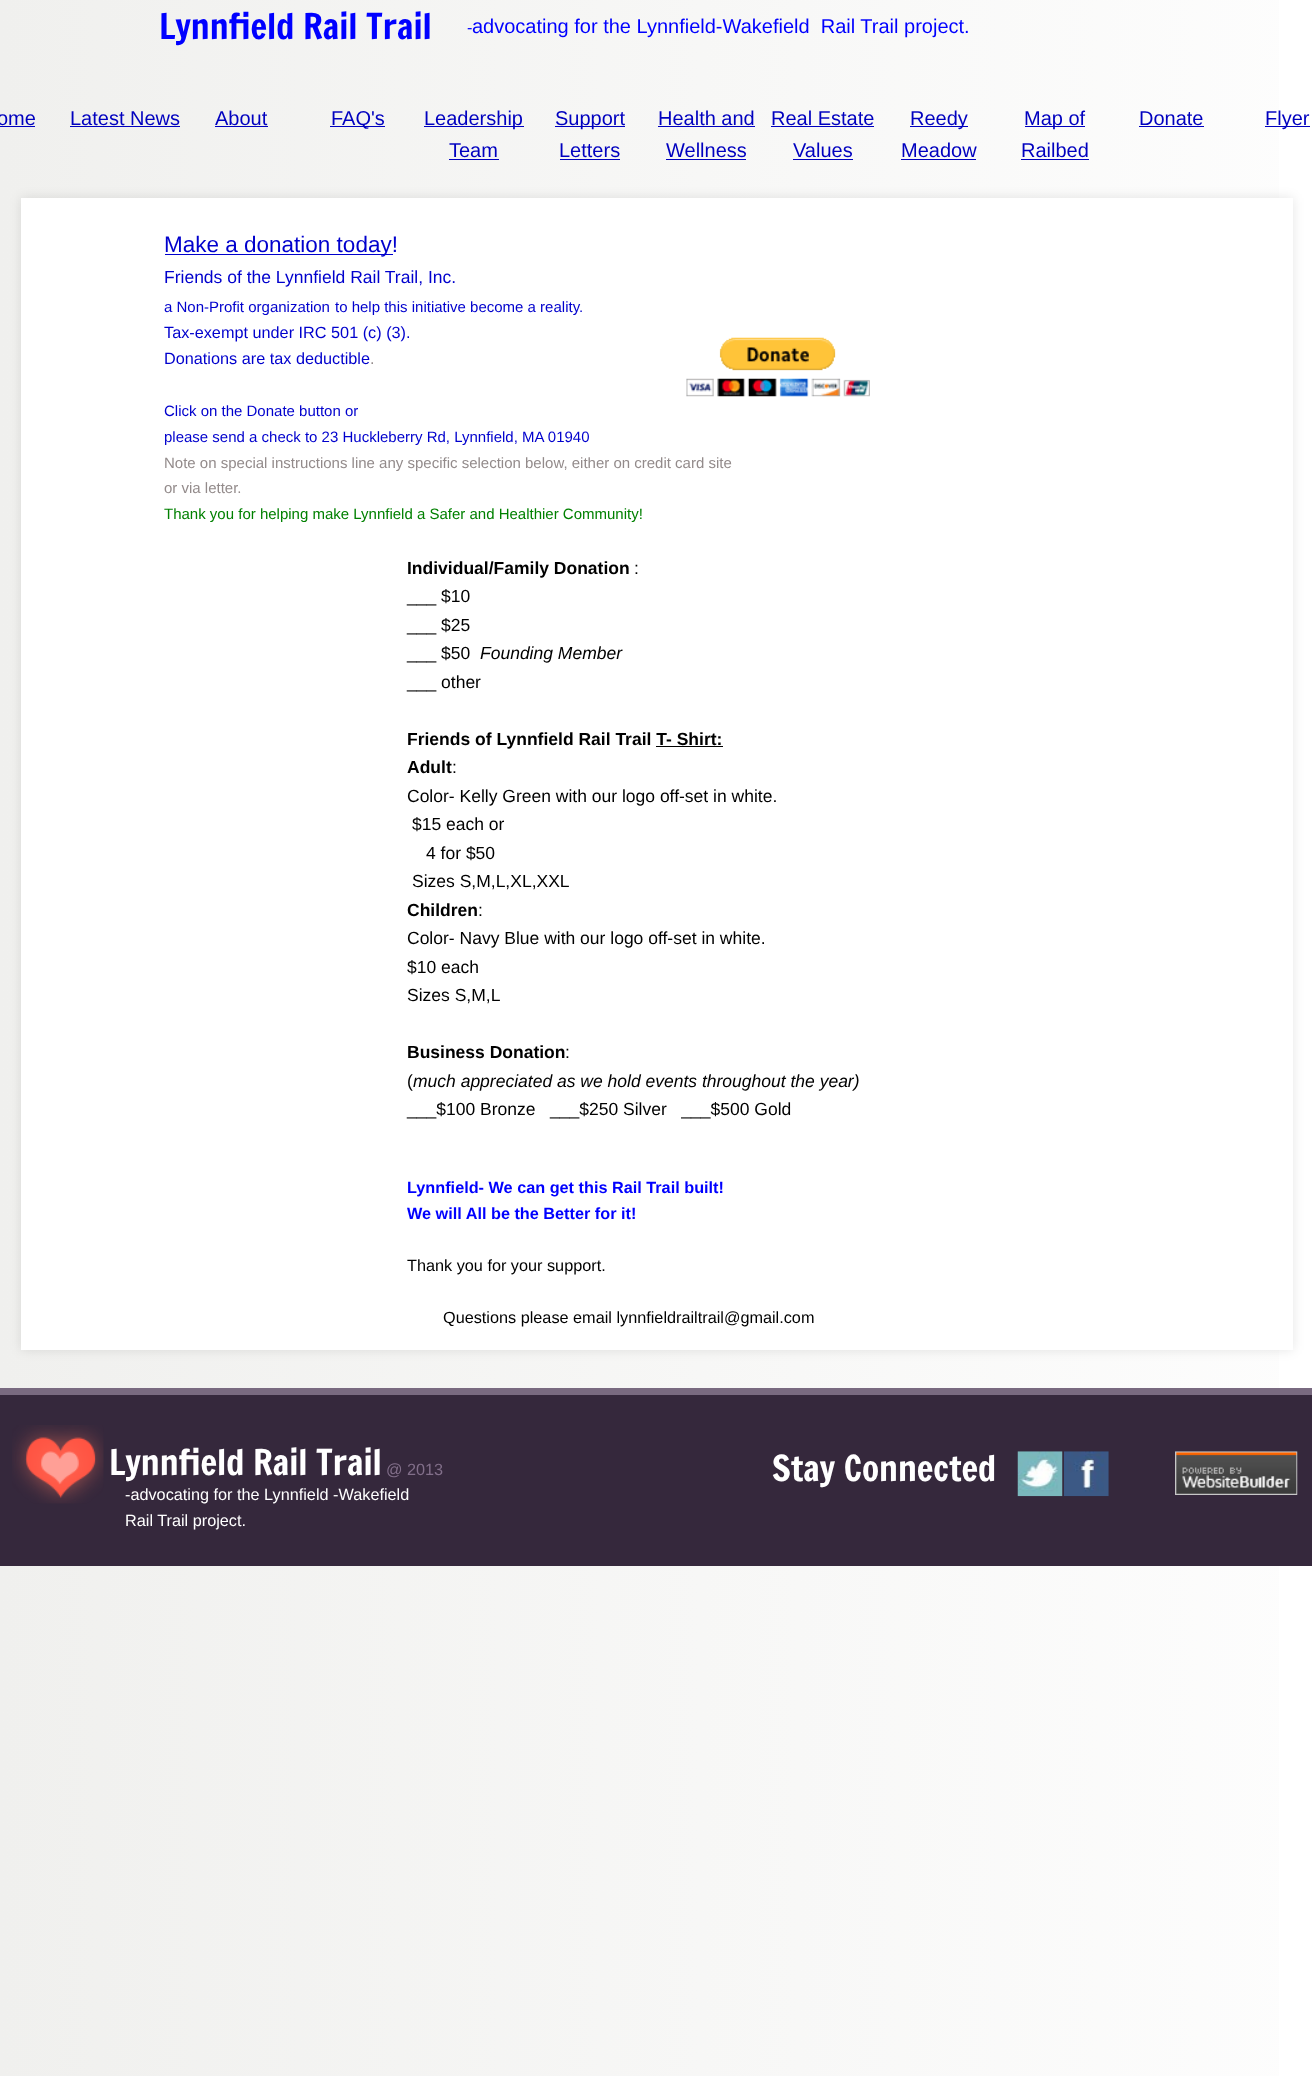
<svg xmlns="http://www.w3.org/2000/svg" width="1312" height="2076">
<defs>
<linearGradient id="g1" gradientUnits="userSpaceOnUse" x1="0" y1="1137" x2="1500" y2="1137"><stop offset="0" stop-color="#f0f0ee"/><stop offset="1" stop-color="#fff"/></linearGradient>
</defs>
<rect width="100%" height="100%" fill="#fff"/>
<rect width="1279" height="2076" fill="url(#g1)"/>
<rect x="21" y="198" width="1272" height="1152" fill="#0000001a" filter="blur(6px)"/>
<rect x="21" y="198" width="1272" height="1152" fill="#fff"/>
<text x="159" y="39" style="font-family:Francois One;font-size:35px;fill:#00f">Lynnfield Rail Trail</text>
<text x="467" y="33" style="font-family:Liberation Sans;font-size:16.25px;fill:#00f">-</text>
<text x="472" y="33" style="font-family:Liberation Sans;font-size:20px;fill:#00f" xml:space="preserve">advocating for the Lynnfield-Wakefield  Rail Trail project.</text>
<text x="-3" y="125" style="font-family:Liberation Sans;font-size:20px;fill:#0000bf">ome</text>
<rect y="126" width="35" height="1" fill="#0000bf"/>
<text x="70" y="125" style="font-family:Liberation Sans;font-size:20px;fill:#0000bf">Latest News</text>
<rect x="70" y="126" width="110" height="1" fill="#0000bf"/>
<text x="215" y="125" style="font-family:Liberation Sans;font-size:20px;fill:#0000bf">About</text>
<rect x="215" y="126" width="53" height="1" fill="#0000bf"/>
<rect x="330" y="126" width="55" height="1" fill="#0000bf"/>
<text x="331" y="125" style="font-family:Liberation Sans;font-size:20px;fill:#0000bf">FAQ's</text>
<rect x="424" y="126" width="100" height="1" fill="#0000bf"/>
<text x="424" y="125" style="font-family:Liberation Sans;font-size:20px;fill:#0000bf">Leadership</text>
<text x="449" y="157" style="font-family:Liberation Sans;font-size:20px;fill:#0000bf">Team</text>
<rect x="449" y="159" width="50" height="1" fill="#0000bf"/>
<rect x="555" y="126" width="70" height="1" fill="#0000bf"/>
<text x="555" y="125" style="font-family:Liberation Sans;font-size:20px;fill:#0000bf">Support</text>
<text x="559" y="157" style="font-family:Liberation Sans;font-size:20px;fill:#0000bf">Letters</text>
<rect x="560" y="159" width="60" height="1" fill="#0000bf"/>
<text x="658" y="125" style="font-family:Liberation Sans;font-size:20px;fill:#0000bf">Health and</text>
<rect x="658" y="126" width="97" height="1" fill="#0000bf"/>
<text x="666" y="157" style="font-family:Liberation Sans;font-size:20px;fill:#0000bf">Wellness</text>
<rect x="666" y="159" width="80" height="1" fill="#0000bf"/>
<text x="771" y="125" style="font-family:Liberation Sans;font-size:20px;fill:#0000bf">Real Estate</text>
<rect x="771" y="126" width="103" height="1" fill="#0000bf"/>
<text x="793" y="157" style="font-family:Liberation Sans;font-size:20px;fill:#0000bf">Values</text>
<rect x="793" y="159" width="60" height="1" fill="#0000bf"/>
<rect x="910" y="126" width="58" height="1" fill="#0000bf"/>
<text x="910" y="125" style="font-family:Liberation Sans;font-size:20px;fill:#0000bf">Reedy</text>
<text x="901" y="157" style="font-family:Liberation Sans;font-size:20px;fill:#0000bf">Meadow</text>
<rect x="901" y="159" width="75" height="1" fill="#0000bf"/>
<rect x="1025" y="126" width="60" height="1" fill="#0000bf"/>
<text x="1024" y="125" style="font-family:Liberation Sans;font-size:20px;fill:#0000bf">Map of</text>
<text x="1021" y="157" style="font-family:Liberation Sans;font-size:20px;fill:#0000bf">Railbed</text>
<rect x="1021" y="159" width="68" height="1" fill="#0000bf"/>
<text x="1139" y="125" style="font-family:Liberation Sans;font-size:20px;fill:#0000bf">Donate</text>
<rect x="1139" y="126" width="65" height="1" fill="#0000bf"/>
<rect x="1265" y="126" width="45" height="1" fill="#0000bf"/>
<text x="1265" y="125" style="font-family:Liberation Sans;font-size:20px;fill:#0000bf">Flyer</text>
<rect x="165" y="254" width="228" height="1" fill="#0000cd"/>
<text x="164" y="252" style="font-family:Liberation Sans;font-size:22.5px;fill:#0000cd">Make a donation today!</text>
<text x="164" y="283" style="font-family:Liberation Sans;font-size:17.5px;fill:#0000cd">Friends of the Lynnfield Rail Trail, Inc.</text>
<text x="164" y="312" style="font-family:Liberation Sans;font-size:15px;fill:#0000cd">a Non-Profit organization</text>
<text x="335" y="312" style="font-family:Liberation Sans;font-size:15px;fill:#0000cd">to help this initiative become a reality.</text>
<text x="164" y="338" style="font-family:Liberation Sans;font-size:16.25px;fill:#0000cd">Tax-exempt under IRC 501 (c) (3).</text>
<text x="164" y="364" style="font-family:Liberation Sans;font-size:16.25px;fill:#0000cd">Donations are tax deductible</text>
<text x="370" y="364" style="font-family:Liberation Sans;font-size:16.25px;fill:#938b8b">.</text>
<text x="164" y="416" style="font-family:Liberation Sans;font-size:15px;fill:#0000cd">Click on the Donate button or</text>
<text x="164" y="442" style="font-family:Liberation Sans;font-size:15px;fill:#0000cd">please send a check to 23 Huckleberry Rd, Lynnfield, MA 01940</text>
<text x="164" y="468" style="font-family:Liberation Sans;font-size:15px;fill:#938b8b">Note on special instructions line any specific selection below, either on credit card site</text>
<text x="164" y="493" style="font-family:Liberation Sans;font-size:15px;fill:#938b8b">or via letter.</text>
<text x="164" y="519" style="font-family:Liberation Sans;font-size:15px;fill:#008000">Thank you for helping make Lynnfield a Safer and Healthier Community!</text>
<image x="686" y="337" width="184" height="60" href="media/1.png"/>
<text x="407" y="574" style="font-family:Liberation Sans;font-size:17.5px;font-weight:bold;fill:#000">Individual/Family Donation</text>
<text x="634" y="574" style="font-family:Liberation Sans;font-size:17.5px;fill:#000">:</text>
<text x="407" y="602" style="font-family:Liberation Sans;font-size:17.5px;fill:#000">___ $10</text>
<text x="407" y="631" style="font-family:Liberation Sans;font-size:17.5px;fill:#000">___ $25</text>
<text x="407" y="659" style="font-family:Liberation Sans;font-size:17.5px;fill:#000">___ $50</text>
<text x="480" y="659" style="font-family:Liberation Sans;font-size:17.5px;font-style:italic;fill:#000">Founding Member</text>
<text x="407" y="688" style="font-family:Liberation Sans;font-size:17.5px;fill:#000">___ other</text>
<text x="407" y="745" style="font-family:Liberation Sans;font-size:17.5px;font-weight:bold;fill:#000">Friends of Lynnfield Rail Trail T- Shirt:</text>
<rect x="656" y="746" width="67" height="1" fill="#000"/>
<text x="407" y="773" style="font-family:Liberation Sans;font-size:17.5px;font-weight:bold;fill:#000">Adult</text>
<text x="452" y="773" style="font-family:Liberation Sans;font-size:17.5px;fill:#000">:</text>
<text x="407" y="802" style="font-family:Liberation Sans;font-size:17.5px;fill:#000">Color- Kelly Green with our logo off-set in white.</text>
<text x="412" y="830" style="font-family:Liberation Sans;font-size:17.5px;fill:#000">$15 each or</text>
<text x="426" y="859" style="font-family:Liberation Sans;font-size:17.5px;fill:#000">4 for $50</text>
<text x="412" y="887" style="font-family:Liberation Sans;font-size:17.5px;fill:#000">Sizes S,M,L,XL,XXL</text>
<text x="407" y="916" style="font-family:Liberation Sans;font-size:17.5px;font-weight:bold;fill:#000">Children</text>
<text x="478" y="916" style="font-family:Liberation Sans;font-size:17.5px;fill:#000">:</text>
<text x="407" y="944" style="font-family:Liberation Sans;font-size:17.5px;fill:#000">Color- Navy Blue with our logo off-set in white.</text>
<text x="407" y="973" style="font-family:Liberation Sans;font-size:17.5px;fill:#000">$10 each</text>
<text x="407" y="1001" style="font-family:Liberation Sans;font-size:17.5px;fill:#000">Sizes S,M,L</text>
<text x="407" y="1058" style="font-family:Liberation Sans;font-size:17.5px;font-weight:bold;fill:#000">Business Donation</text>
<text x="565" y="1058" style="font-family:Liberation Sans;font-size:17.5px;fill:#000">:</text>
<text x="407" y="1087" style="font-family:Liberation Sans;font-size:17.5px;fill:#000">(</text>
<text x="413" y="1087" style="font-family:Liberation Sans;font-size:17.5px;font-style:italic;fill:#000">much appreciated as we hold events throughout the year)</text>
<text x="407" y="1115" style="font-family:Liberation Sans;font-size:17.5px;fill:#000" xml:space="preserve">___$100 Bronze   ___$250 Silver   ___$500 Gold</text>
<text x="407" y="1193" style="font-family:Liberation Sans;font-size:16.25px;font-weight:bold;fill:#00f">Lynnfield- We can get this Rail Trail built!</text>
<text x="407" y="1219" style="font-family:Liberation Sans;font-size:16.25px;font-weight:bold;fill:#00f">We will All be the Better for it!</text>
<text x="407" y="1271" style="font-family:Liberation Sans;font-size:16.25px;fill:#000">Thank you for your support.</text>
<text x="443" y="1323" style="font-family:Liberation Sans;font-size:16.25px;fill:#000">Questions please email lynnfieldrailtrail@gmail.com</text>
<rect y="1395" width="1312" height="171" fill="#35283c"/>
<rect y="1388" width="1312" height="7" fill="#796a80"/>
<image x="12" y="1425" width="92" height="79" href="media/2.png"/>
<text x="109" y="1475" style="font-family:Francois One;font-size:35px;fill:#fff">Lynnfield Rail Trail</text>
<text x="386" y="1475" style="font-family:Liberation Sans;font-size:16.25px;fill:#826f8a">@ 2013</text>
<text x="772" y="1481" style="font-family:Francois One;font-size:35px;fill:#fff">Stay Connected</text>
<image x="1017" y="1451" width="46" height="46" href="media/3.png"/>
<image x="1063" y="1451" width="46" height="46" href="media/4.png"/>
<image x="1175" y="1451" width="123" height="44" href="media/5.png"/>
<text x="125" y="1500" style="font-family:Liberation Sans;font-size:16.25px;fill:#fff">-advocating for the Lynnfield -Wakefield</text>
<text x="125" y="1526" style="font-family:Liberation Sans;font-size:16.25px;fill:#fff">Rail Trail project.</text>
</svg>
